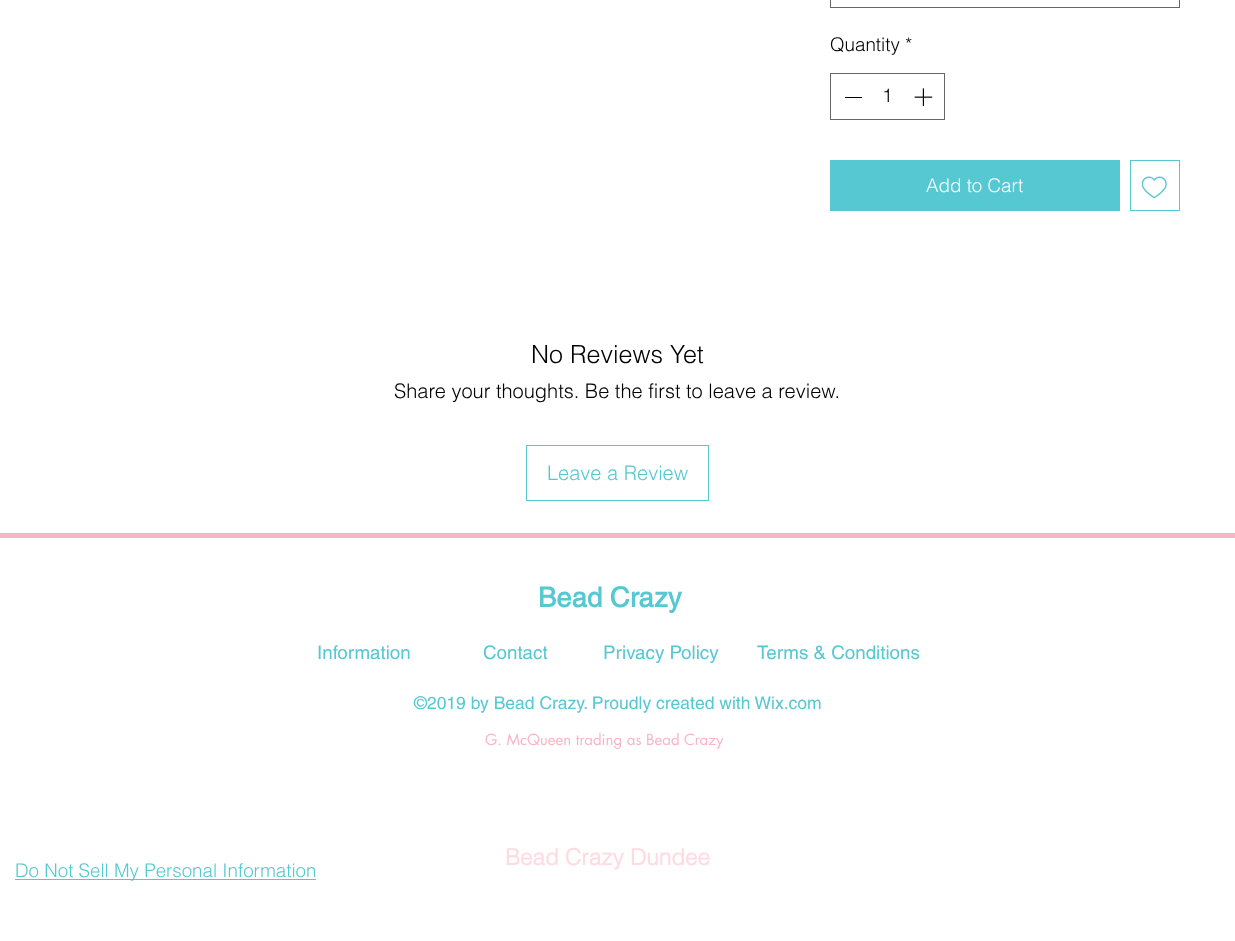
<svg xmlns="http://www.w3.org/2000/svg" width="1235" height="941">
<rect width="100%" height="100%" fill="#fff"/>
<rect x="830.5" y="-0.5" width="349" height="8" fill="none" stroke="#666"/>
<text x="830" y="51" style="font-family:helvetica;font-size:18.75px;font-weight:300;fill:#000">Quantity *</text>
<rect x="830.5" y="73.5" width="114" height="46" fill="none" stroke="#666"/>
<rect x="845" y="97" width="17" height="1" fill="#000"/>
<text x="882" y="102" style="font-family:helvetica;font-size:18.75px;font-weight:300;fill:#000">1</text>
<image x="914" y="88" width="19" height="18" href="media/1.png"/>
<rect x="830" y="160" width="290" height="51" fill="#55c8d1"/>
<text x="926" y="192" style="font-family:helvetica;font-size:18.75px;font-weight:300;fill:#fff">Add to Cart</text>
<rect x="1130.5" y="160.5" width="49" height="50" fill="none" stroke="#55c8d1"/>
<image x="1141" y="176" width="26" height="23" href="media/2.png"/>
<text x="531" y="363" style="font-family:helvetica;font-size:25px;font-weight:300;fill:#000">No Reviews Yet</text>
<text x="394" y="398" style="font-family:helvetica;font-size:20px;font-weight:300;fill:#000">Share your thoughts. Be the first to leave a review.</text>
<rect x="526.5" y="445.5" width="182" height="55" fill="none" stroke="#55c8d1"/>
<text x="547" y="480" style="font-family:helvetica;font-size:20px;font-weight:300;fill:#55c8d1">Leave a Review</text>
<rect y="533" width="1235" height="5" fill="#fcb4c4"/>
<text x="538" y="607" style="font-family:helvetica;font-size:27.5px;font-weight:bold;fill:#55c8d1">Bead Crazy</text>
<text x="317" y="659" style="font-family:helvetica;font-size:18.75px;fill:#55c8d1">Information</text>
<text x="483" y="659" style="font-family:helvetica;font-size:18.75px;fill:#55c8d1">Contact</text>
<text x="603" y="659" style="font-family:helvetica;font-size:18.75px;fill:#55c8d1">Privacy Policy</text>
<text x="757" y="659" style="font-family:helvetica;font-size:18.75px;fill:#55c8d1">Terms &amp; Conditions</text>
<text x="414" y="709" style="font-family:helvetica;font-size:17.5px;fill:#55c8d1">©2019 by Bead Crazy. Proudly created with Wix.com</text>
<text x="485" y="745" style="font-family:futura;font-size:15px;fill:#fcb4c4">G. McQueen trading as Bead Crazy</text>
<text x="505" y="865" style="font-family:'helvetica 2';font-size:22.5px;font-weight:bold;fill:#fedae2">Bead Crazy Dundee</text>
<rect x="15" y="879" width="301" height="1" fill="#55c8d1"/>
<text x="15" y="877" style="font-family:helvetica;font-size:18.75px;font-weight:300;fill:#55c8d1">Do Not Sell My Personal Information</text>
</svg>
